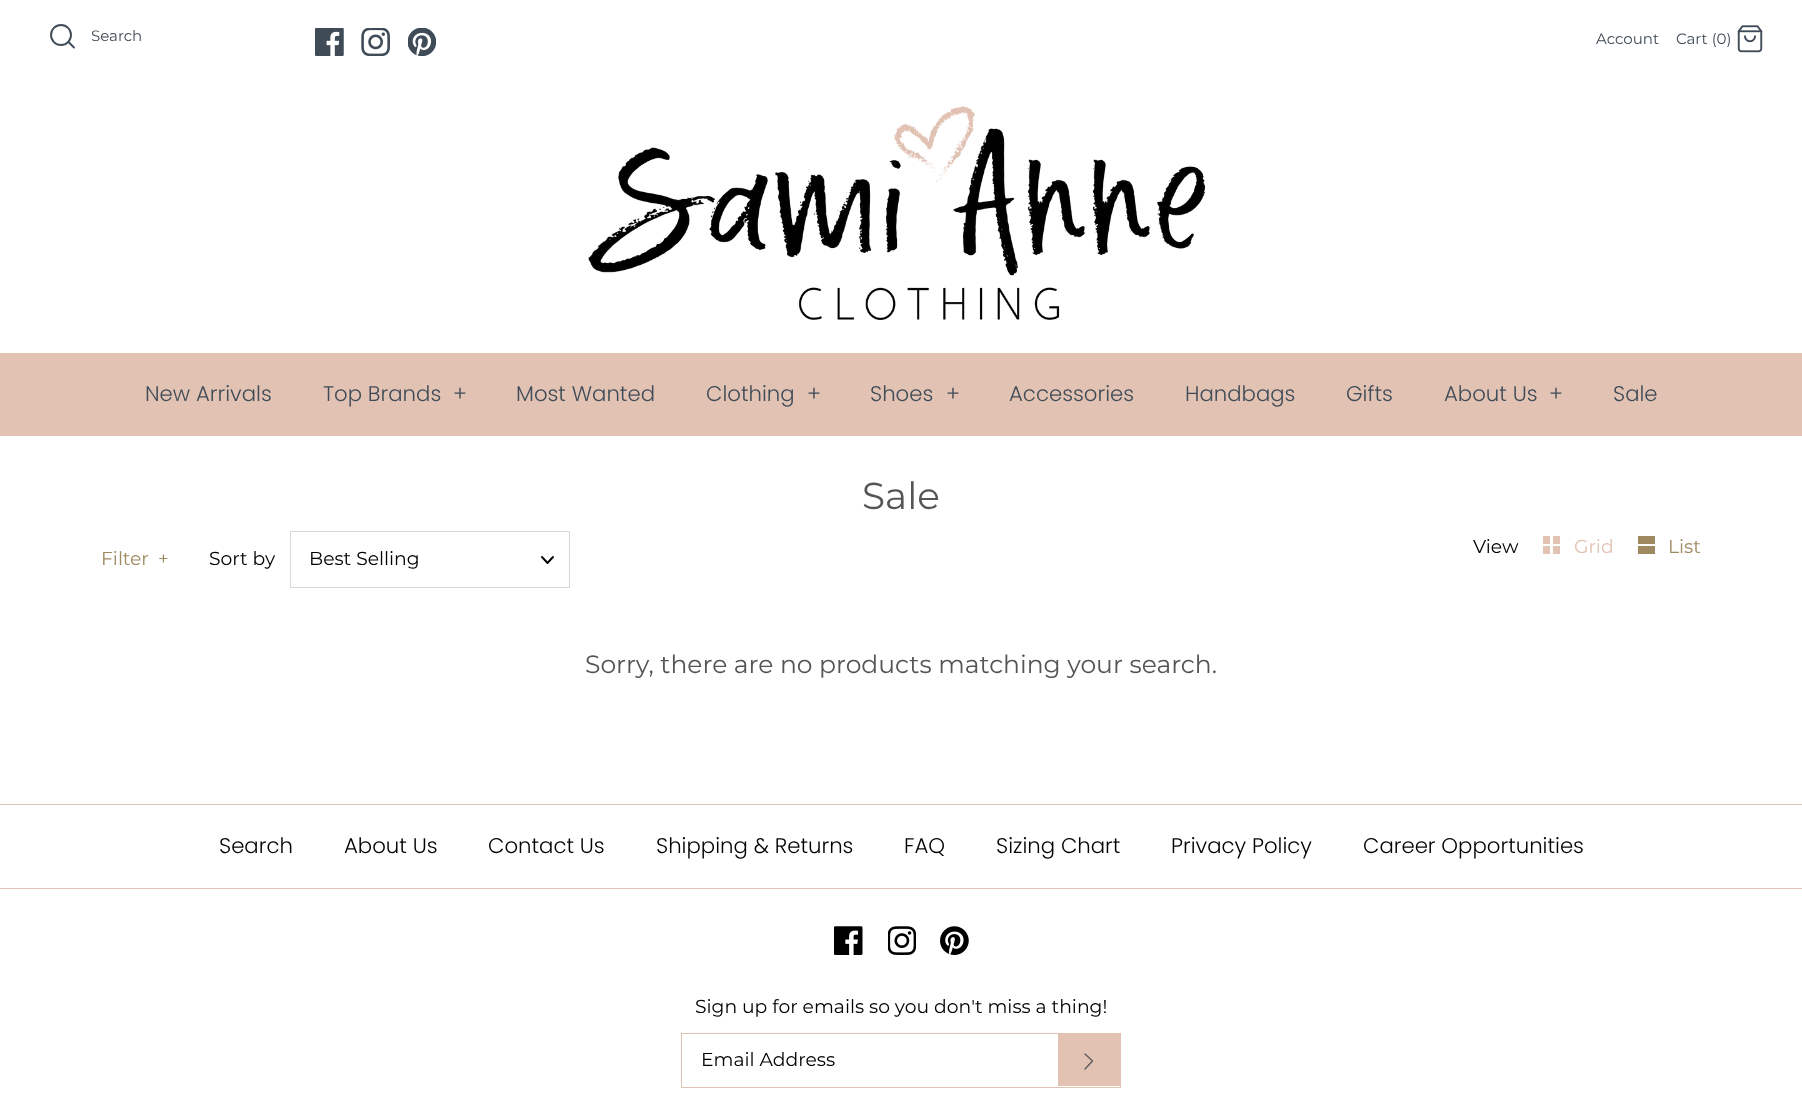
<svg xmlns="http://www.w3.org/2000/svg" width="1802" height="1119">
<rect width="100%" height="100%" fill="#fff"/>
<circle cx="61" cy="35" r="10" fill="none" stroke="#3f4b57" stroke-width="1.9"/>
<path d="M74 47.5l-5.5-5.5" fill="none" stroke="#3f4b57" stroke-width="1.9" stroke-linecap="round" stroke-linejoin="round"/>
<text x="91" y="41" style="font-family:Montserrat;font-size:15px;fill:#3f4b57">Search</text>
<image x="315" y="28" width="29" height="28" href="media/1.png"/>
<image x="361" y="28" width="29" height="28" href="media/2.png"/>
<image x="408" y="28" width="28" height="28" href="media/3.png"/>
<text x="1596" y="44" style="font-family:Montserrat;font-size:15px;fill:#3f4b57">Account</text>
<text x="1676" y="44" style="font-family:Montserrat;font-size:15px;fill:#3f4b57">Cart (0)</text>
<image x="1737" y="25" width="26" height="28" href="media/4.png"/>
<image x="588" y="106" width="618" height="215" href="media/5.png"/>
<rect y="353" width="1802" height="83" fill="#e1c2b3"/>
<text x="145" y="401" style="font-family:Poppins;font-size:21.25px;font-weight:300;fill:#3f4b57">New Arrivals</text>
<text x="323" y="401" style="font-family:Poppins;font-size:21.25px;font-weight:300;fill:#3f4b57">Top Brands</text>
<text x="453" y="401" style="font-family:Poppins;font-size:21.25px;font-weight:300;fill:#3f4b57">+</text>
<text x="516" y="401" style="font-family:Poppins;font-size:21.25px;font-weight:300;fill:#3f4b57">Most Wanted</text>
<text x="706" y="401" style="font-family:Poppins;font-size:21.25px;font-weight:300;fill:#3f4b57">Clothing</text>
<text x="807" y="401" style="font-family:Poppins;font-size:21.25px;font-weight:300;fill:#3f4b57">+</text>
<text x="870" y="401" style="font-family:Poppins;font-size:21.25px;font-weight:300;fill:#3f4b57">Shoes</text>
<text x="946" y="401" style="font-family:Poppins;font-size:21.25px;font-weight:300;fill:#3f4b57">+</text>
<text x="1009" y="401" style="font-family:Poppins;font-size:21.25px;font-weight:300;fill:#3f4b57">Accessories</text>
<text x="1185" y="401" style="font-family:Poppins;font-size:21.25px;font-weight:300;fill:#3f4b57">Handbags</text>
<text x="1346" y="401" style="font-family:Poppins;font-size:21.25px;font-weight:300;fill:#3f4b57">Gifts</text>
<text x="1444" y="401" style="font-family:Poppins;font-size:21.25px;font-weight:300;fill:#3f4b57">About Us</text>
<text x="1549" y="401" style="font-family:Poppins;font-size:21.25px;font-weight:300;fill:#3f4b57">+</text>
<text x="1613" y="401" style="font-family:Poppins;font-size:21.25px;font-weight:300;fill:#3f4b57">Sale</text>
<text x="862" y="509" style="font-family:Montserrat;font-size:37.5px;fill:#555557">Sale</text>
<text x="1473" y="553" style="font-family:Montserrat;font-size:18.75px;fill:#000">View</text>
<rect x="1543" y="536" width="7" height="8" fill="#e1c2b3"/>
<rect x="1553" y="536" width="7" height="8" fill="#e1c2b3"/>
<text x="1574" y="553" style="font-family:Montserrat;font-size:18.75px;fill:#e1c2b3">Grid</text>
<rect x="1543" y="546" width="7" height="8" fill="#e1c2b3"/>
<rect x="1553" y="546" width="7" height="8" fill="#e1c2b3"/>
<rect x="1638" y="536" width="17" height="8" fill="#9f8960"/>
<text x="1668" y="553" style="font-family:Montserrat;font-size:18.75px;fill:#9f8960">List</text>
<rect x="1638" y="546" width="17" height="8" fill="#9f8960"/>
<text x="101" y="565" style="font-family:Montserrat;font-size:18.75px;fill:#9f8960">Filter</text>
<text x="158" y="565" style="font-family:Montserrat;font-size:18.75px;fill:#9f8960">+</text>
<text x="209" y="565" style="font-family:Montserrat;font-size:18.75px;fill:#000">Sort by</text>
<rect x="290.5" y="531.5" width="279" height="56" fill="none" stroke="#d9d9d9"/>
<text x="309" y="565" style="font-family:Montserrat;font-size:18.75px;fill:#000">Best Selling</text>
<path d="M542 557l5.5 6l5.5-6" fill="none" stroke="#000" stroke-width="1.9" stroke-linecap="round" stroke-linejoin="round"/>
<text x="585" y="673" style="font-family:Montserrat;font-size:25px;fill:#555557">Sorry, there are no products matching your search.</text>
<rect y="804" width="1802" height="1" fill="#e1c2b3"/>
<rect y="888" width="1802" height="1" fill="#e1c2b3"/>
<text x="219" y="853" style="font-family:Poppins;font-size:21.25px;font-weight:300;fill:#000">Search</text>
<text x="344" y="853" style="font-family:Poppins;font-size:21.25px;font-weight:300;fill:#000">About Us</text>
<text x="488" y="853" style="font-family:Poppins;font-size:21.25px;font-weight:300;fill:#000">Contact Us</text>
<text x="656" y="853" style="font-family:Poppins;font-size:21.25px;font-weight:300;fill:#000">Shipping &amp; Returns</text>
<text x="904" y="853" style="font-family:Poppins;font-size:21.25px;font-weight:300;fill:#000">FAQ</text>
<text x="996" y="853" style="font-family:Poppins;font-size:21.25px;font-weight:300;fill:#000">Sizing Chart</text>
<text x="1171" y="853" style="font-family:Poppins;font-size:21.25px;font-weight:300;fill:#000">Privacy Policy</text>
<text x="1363" y="853" style="font-family:Poppins;font-size:21.25px;font-weight:300;fill:#000">Career Opportunities</text>
<image x="834" y="926" width="29" height="29" href="media/6.png"/>
<image x="888" y="926" width="28" height="29" href="media/7.png"/>
<image x="940" y="926" width="29" height="29" href="media/8.png"/>
<text x="695" y="1013" style="font-family:Montserrat;font-size:18.75px;fill:#000">Sign up for emails so you don't miss a thing!</text>
<rect x="681.5" y="1033.5" width="439" height="54" fill="none" stroke="#e1c2b3"/>
<text x="701" y="1066" style="font-family:Montserrat;font-size:18.75px;fill:#000">Email Address</text>
<rect x="1058" y="1034" width="62" height="52" fill="#e1c2b3"/>
<path d="M1085 1069l7.5-8l-7.5-7" fill="none" stroke="#555557" stroke-width="1.2" stroke-linecap="round" stroke-linejoin="round"/>
</svg>
